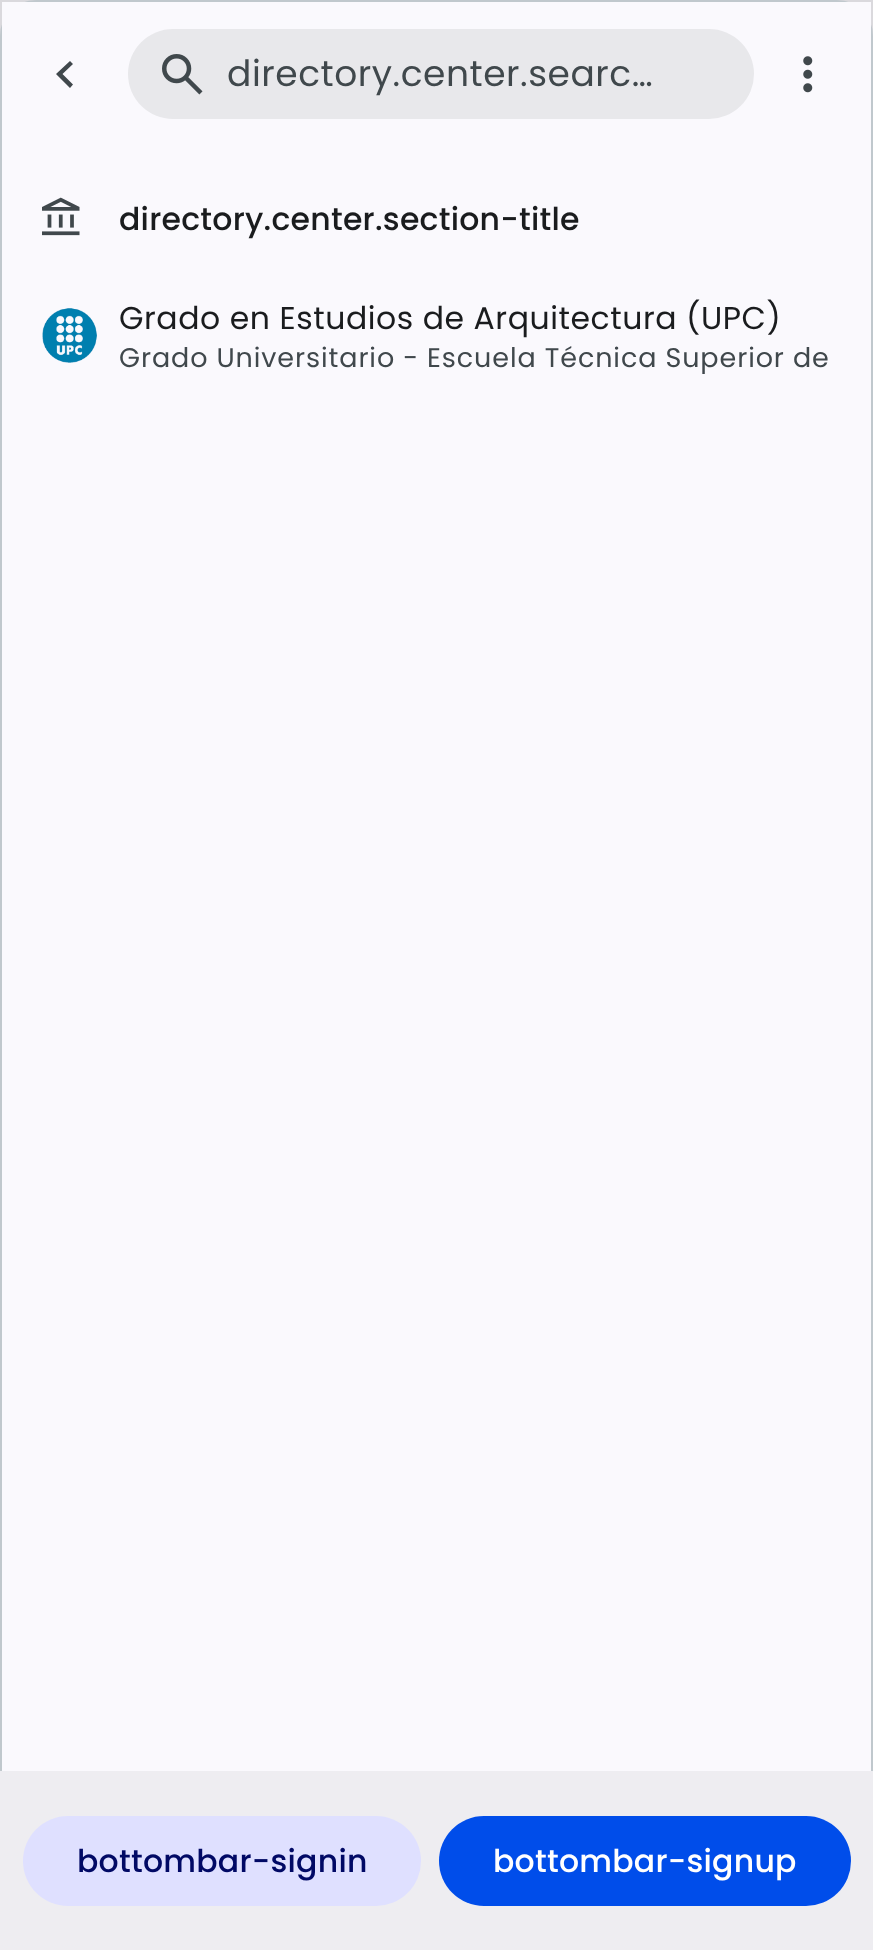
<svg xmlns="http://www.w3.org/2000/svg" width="873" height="1950">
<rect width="100%" height="100%" fill="#dad9dd"/>
<rect x="1" y="1" width="871" height="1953" rx="35" fill="none" stroke="#c0c8cd" stroke-width="2"/>
<rect x="2" y="2" width="869" height="1769" fill="#faf9fd"/>
<path d="M70 88l-14-14l14-13l3 3l-10.5 10l10.5 10.5z" fill="#40484c"/>
<rect x="128" y="29" width="626" height="90" rx="45" fill="#e8e8eb"/>
<image x="162" y="54" width="41" height="41" href="media/1.png"/>
<text x="227" y="86" style="font-family:Poppins;font-size:36px;letter-spacing:0.55px;fill:#40484c">directory.center.searc…</text>
<image x="803" y="56" width="10" height="37" href="media/2.png"/>
<image x="42" y="197" width="38" height="39" href="media/3.png"/>
<text x="119" y="230" style="font-family:Poppins;font-size:31.5px;font-weight:500;letter-spacing:0.25px;fill:#1a1c1e">directory.center.section-title</text>
<image x="42" y="308" width="55" height="55" href="media/4.png"/>
<text x="119" y="329" style="font-family:Poppins;font-size:31.5px;letter-spacing:0.55px;fill:#1a1c1e">Grado en Estudios de Arquitectura (UPC)</text>
<text x="119" y="367" style="font-family:Poppins;font-size:27px;letter-spacing:0.9px;fill:#40484c">Grado Universitario - Escuela Técnica Superior de</text>
<rect y="1771" width="873" height="179" fill="#eeedf1"/>
<rect x="23" y="1816" width="398" height="90" rx="45" fill="#dfe0ff"/>
<text x="77" y="1872" style="font-family:Poppins;font-size:31.5px;font-weight:500;letter-spacing:0.25px;fill:#010965">bottombar-signin</text>
<rect x="439" y="1816" width="412" height="90" rx="45" fill="#004dea"/>
<text x="493" y="1872" style="font-family:Poppins;font-size:31.5px;font-weight:500;letter-spacing:0.25px;fill:#fff">bottombar-signup</text>
</svg>
